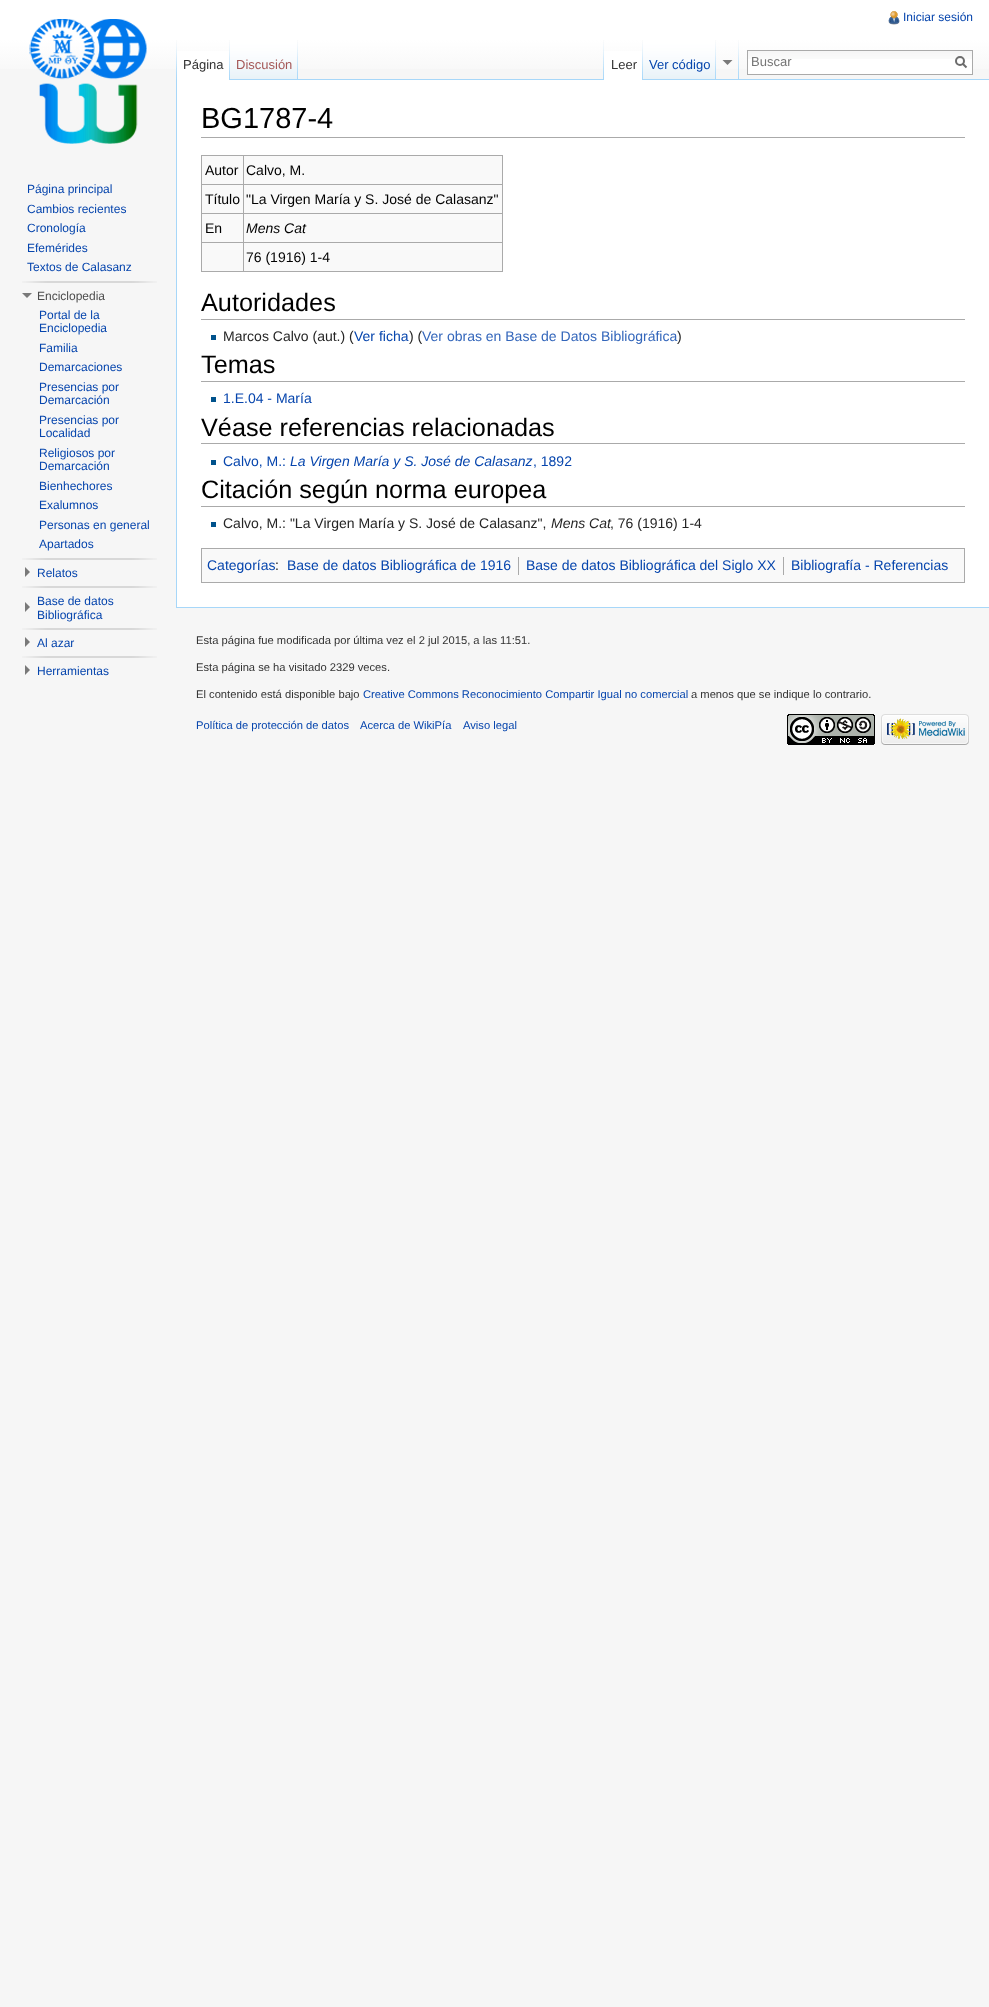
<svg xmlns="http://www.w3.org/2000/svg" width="989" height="2007">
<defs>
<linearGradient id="g1" gradientUnits="userSpaceOnUse" x1="495" y1="0" x2="495" y2="80"><stop offset="0.5" stop-color="#fff"/><stop offset="1" stop-color="#f6f6f6"/></linearGradient>
</defs>
<rect width="100%" height="100%" fill="#f6f6f6"/>
<rect width="989" height="69" fill="url(#g1)"/>
<image x="888" y="11" width="12" height="14" href="media/1.png"/>
<text x="903" y="21" style="font-family:Liberation Sans;font-size:12px;fill:#0645ad">Iniciar sesión</text>
<image x="176" y="40" width="1" height="39" href="media/2.png"/>
<rect x="177" y="51" width="52" height="29" fill="#fff"/>
<image x="229" y="40" width="1" height="40" href="media/3.png"/>
<text x="183" y="69" style="font-family:Liberation Sans;font-size:13px;fill:#333">Página</text>
<image x="230" y="40" width="68" height="40" href="media/4.png"/>
<image x="297" y="40" width="1" height="39" href="media/5.png"/>
<text x="236" y="69" style="font-family:Liberation Sans;font-size:13px;fill:#a55858">Discusión</text>
<image x="603" y="40" width="1" height="39" href="media/2.png"/>
<rect x="298" y="79" width="691" height="1" fill="#a7d7f9"/>
<rect x="604" y="51" width="38" height="29" fill="#fff"/>
<image x="642" y="40" width="1" height="40" href="media/3.png"/>
<text x="611" y="69" style="font-family:Liberation Sans;font-size:13px;fill:#333">Leer</text>
<image x="643" y="40" width="73" height="40" href="media/6.png"/>
<image x="715" y="40" width="1" height="39" href="media/5.png"/>
<text x="649" y="69" style="font-family:Liberation Sans;font-size:13px;fill:#0645ad">Ver código</text>
<path d="M732.5 60l-5 5l-5-5z" fill="#797979"/>
<image x="738" y="40" width="1" height="39" href="media/5.png"/>
<rect x="748" y="59" width="224" height="15" fill="#fff"/>
<image x="748" y="51" width="224" height="8" href="media/7.png"/>
<rect x="747.5" y="50.5" width="225" height="24" fill="none" stroke="#aaa"/>
<text x="751" y="66" style="font-family:Liberation Sans;font-size:13px;fill:#757575">Buscar</text>
<path d="M966.5 67.5l-4-4" fill="none" stroke="#6c6c6c" stroke-width="2"/>
<circle cx="960" cy="61" r="4" fill="none" stroke="#6c6c6c" stroke-width="2"/>
<image x="29" y="19" width="118" height="125" href="media/8.png"/>
<text x="27" y="193" style="font-family:Liberation Sans;font-size:12px;fill:#0645ad">Página principal</text>
<text x="27" y="213" style="font-family:Liberation Sans;font-size:12px;fill:#0645ad">Cambios recientes</text>
<text x="27" y="232" style="font-family:Liberation Sans;font-size:12px;fill:#0645ad">Cronología</text>
<text x="27" y="252" style="font-family:Liberation Sans;font-size:12px;fill:#0645ad">Efemérides</text>
<text x="27" y="271" style="font-family:Liberation Sans;font-size:12px;fill:#0645ad">Textos de Calasanz</text>
<image x="22" y="281" width="135" height="2" href="media/9.png"/>
<path d="M32 293l-5 5l-5-5z" fill="#797979"/>
<text x="37" y="300" style="font-family:Liberation Sans;font-size:12px;fill:#4d4d4d">Enciclopedia</text>
<text x="39" y="319" style="font-family:Liberation Sans;font-size:12px;fill:#0645ad">Portal de la</text>
<text x="39" y="332" style="font-family:Liberation Sans;font-size:12px;fill:#0645ad">Enciclopedia</text>
<text x="39" y="352" style="font-family:Liberation Sans;font-size:12px;fill:#0645ad">Familia</text>
<text x="39" y="371" style="font-family:Liberation Sans;font-size:12px;fill:#0645ad">Demarcaciones</text>
<text x="39" y="391" style="font-family:Liberation Sans;font-size:12px;fill:#0645ad">Presencias por</text>
<text x="39" y="404" style="font-family:Liberation Sans;font-size:12px;fill:#0645ad">Demarcación</text>
<text x="39" y="424" style="font-family:Liberation Sans;font-size:12px;fill:#0645ad">Presencias por</text>
<text x="39" y="437" style="font-family:Liberation Sans;font-size:12px;fill:#0645ad">Localidad</text>
<text x="39" y="457" style="font-family:Liberation Sans;font-size:12px;fill:#0645ad">Religiosos por</text>
<text x="39" y="470" style="font-family:Liberation Sans;font-size:12px;fill:#0645ad">Demarcación</text>
<text x="39" y="490" style="font-family:Liberation Sans;font-size:12px;fill:#0645ad">Bienhechores</text>
<text x="39" y="509" style="font-family:Liberation Sans;font-size:12px;fill:#0645ad">Exalumnos</text>
<text x="39" y="529" style="font-family:Liberation Sans;font-size:12px;fill:#0645ad">Personas en general</text>
<text x="39" y="548" style="font-family:Liberation Sans;font-size:12px;fill:#0645ad">Apartados</text>
<image x="22" y="558" width="135" height="2" href="media/9.png"/>
<path d="M25 567l5 5l-5 5z" fill="#797979"/>
<text x="37" y="577" style="font-family:Liberation Sans;font-size:12px;fill:#0645ad">Relatos</text>
<image x="22" y="586" width="135" height="2" href="media/9.png"/>
<path d="M25 602l5 5l-5 5z" fill="#797979"/>
<text x="37" y="605" style="font-family:Liberation Sans;font-size:12px;fill:#0645ad">Base de datos</text>
<text x="37" y="619" style="font-family:Liberation Sans;font-size:12px;fill:#0645ad">Bibliográfica</text>
<image x="22" y="628" width="135" height="2" href="media/9.png"/>
<path d="M25 637l5 5l-5 5z" fill="#797979"/>
<text x="37" y="647" style="font-family:Liberation Sans;font-size:12px;fill:#0645ad">Al azar</text>
<image x="22" y="656" width="135" height="2" href="media/9.png"/>
<path d="M25 665l5 5l-5 5z" fill="#797979"/>
<text x="37" y="675" style="font-family:Liberation Sans;font-size:12px;fill:#0645ad">Herramientas</text>
<rect x="177" y="80" width="812" height="527" fill="#fff"/>
<rect x="176" y="607" width="813" height="1" fill="#a7d7f9"/>
<rect x="176" y="79" width="1" height="529" fill="#a7d7f9"/>
<rect x="201" y="137" width="764" height="1" fill="#aaa"/>
<text x="201" y="128" style="font-family:Liberation Sans;font-size:29px;fill:#000">BG1787-4</text>
<rect x="202" y="156" width="300" height="115" fill="#f9f9f9"/>
<rect x="201" y="155" width="302" height="1" fill="#aaa"/>
<rect x="502" y="155" width="1" height="117" fill="#aaa"/>
<rect x="201" y="271" width="302" height="1" fill="#aaa"/>
<rect x="201" y="155" width="1" height="117" fill="#aaa"/>
<text x="205" y="175" style="font-family:Liberation Sans;font-size:14px;fill:#000">Autor</text>
<rect x="243" y="184" width="260" height="1" fill="#aaa"/>
<rect x="243" y="213" width="260" height="1" fill="#aaa"/>
<rect x="243" y="242" width="260" height="1" fill="#aaa"/>
<rect x="243" y="242" width="1" height="30" fill="#aaa"/>
<rect x="201" y="242" width="43" height="1" fill="#aaa"/>
<rect x="243" y="213" width="1" height="30" fill="#aaa"/>
<rect x="201" y="213" width="43" height="1" fill="#aaa"/>
<rect x="243" y="184" width="1" height="30" fill="#aaa"/>
<rect x="201" y="184" width="43" height="1" fill="#aaa"/>
<rect x="243" y="155" width="1" height="30" fill="#aaa"/>
<text x="246" y="175" style="font-family:Liberation Sans;font-size:14px;fill:#000">Calvo, M.</text>
<text x="205" y="204" style="font-family:Liberation Sans;font-size:14px;fill:#000">Título</text>
<text x="246" y="204" style="font-family:Liberation Sans;font-size:14px;fill:#000">"La Virgen María y S. José de Calasanz"</text>
<text x="205" y="233" style="font-family:Liberation Sans;font-size:14px;fill:#000">En</text>
<text x="246" y="233" style="font-family:Liberation Sans;font-size:14px;font-style:italic;fill:#000">Mens Cat</text>
<text x="246" y="262" style="font-family:Liberation Sans;font-size:14px;fill:#000">76 (1916) 1-4</text>
<rect x="201" y="319" width="764" height="1" fill="#aaa"/>
<text x="201" y="311" style="font-family:Liberation Sans;font-size:25.25px;fill:#000">Autoridades</text>
<rect x="211" y="335" width="5" height="5" fill="#00528c"/>
<text x="223" y="341" style="font-family:Liberation Sans;font-size:14px;fill:#252525">Marcos Calvo (aut.) (</text>
<text x="354" y="341" style="font-family:Liberation Sans;font-size:14px;fill:#0645ad">Ver ficha</text>
<text x="409" y="341" style="font-family:Liberation Sans;font-size:14px;fill:#252525">) (</text>
<text x="422" y="341" style="font-family:Liberation Sans;font-size:14px;fill:#36b">Ver obras en Base de Datos Bibliográfica</text>
<text x="677" y="341" style="font-family:Liberation Sans;font-size:14px;fill:#252525">)</text>
<rect x="201" y="381" width="764" height="1" fill="#aaa"/>
<text x="201" y="373" style="font-family:Liberation Sans;font-size:25.25px;fill:#000">Temas</text>
<rect x="211" y="397" width="5" height="5" fill="#00528c"/>
<text x="223" y="403" style="font-family:Liberation Sans;font-size:14px;fill:#0645ad">1.E.04 - María</text>
<rect x="201" y="443" width="764" height="1" fill="#aaa"/>
<text x="201" y="436" style="font-family:Liberation Sans;font-size:25.25px;fill:#000">Véase referencias relacionadas</text>
<rect x="211" y="460" width="5" height="5" fill="#00528c"/>
<text x="223" y="466" style="font-family:Liberation Sans;font-size:14px;fill:#0645ad">Calvo, M.:</text>
<text x="290" y="466" style="font-family:Liberation Sans;font-size:14px;font-style:italic;fill:#0645ad">La Virgen María y S. José de Calasanz</text>
<text x="533" y="466" style="font-family:Liberation Sans;font-size:14px;fill:#0645ad">, 1892</text>
<rect x="201" y="506" width="764" height="1" fill="#aaa"/>
<text x="201" y="498" style="font-family:Liberation Sans;font-size:25.25px;fill:#000">Citación según norma europea</text>
<rect x="211" y="522" width="5" height="5" fill="#00528c"/>
<text x="223" y="528" style="font-family:Liberation Sans;font-size:14px;fill:#252525">Calvo, M.: "La Virgen María y S. José de Calasanz",</text>
<text x="551" y="528" style="font-family:Liberation Sans;font-size:14px;font-style:italic;fill:#252525">Mens Cat</text>
<text x="610" y="528" style="font-family:Liberation Sans;font-size:14px;fill:#252525">, 76 (1916) 1-4</text>
<rect x="201.5" y="548.5" width="763" height="34" fill="#f9f9f9" stroke="#aaa"/>
<text x="207" y="570" style="font-family:Liberation Sans;font-size:14px;fill:#0645ad">Categorías</text>
<text x="275" y="570" style="font-family:Liberation Sans;font-size:14px;fill:#252525">:</text>
<text x="287" y="570" style="font-family:Liberation Sans;font-size:14px;fill:#0645ad">Base de datos Bibliográfica de 1916</text>
<rect x="518" y="557" width="1" height="18" fill="#aaa"/>
<text x="526" y="570" style="font-family:Liberation Sans;font-size:14px;fill:#0645ad">Base de datos Bibliográfica del Siglo XX</text>
<rect x="783" y="557" width="1" height="18" fill="#aaa"/>
<text x="791" y="570" style="font-family:Liberation Sans;font-size:14px;fill:#0645ad">Bibliografía - Referencias</text>
<text x="196" y="644" style="font-family:Liberation Sans;font-size:11.2px;fill:#333">Esta página fue modificada por última vez el 2 jul 2015, a las 11:51.</text>
<text x="196" y="671" style="font-family:Liberation Sans;font-size:11.2px;fill:#333">Esta página se ha visitado 2329 veces.</text>
<text x="196" y="698" style="font-family:Liberation Sans;font-size:11.2px;fill:#333">El contenido está disponible bajo</text>
<text x="363" y="698" style="font-family:Liberation Sans;font-size:11.2px;fill:#0645ad">Creative Commons Reconocimiento Compartir Igual no comercial</text>
<text x="691" y="698" style="font-family:Liberation Sans;font-size:11.2px;fill:#333">a menos que se indique lo contrario.</text>
<text x="196" y="729" style="font-family:Liberation Sans;font-size:11.2px;fill:#0645ad">Política de protección de datos</text>
<text x="360" y="729" style="font-family:Liberation Sans;font-size:11.2px;fill:#0645ad">Acerca de WikiPía</text>
<text x="463" y="729" style="font-family:Liberation Sans;font-size:11.2px;fill:#0645ad">Aviso legal</text>
<image x="787" y="714" width="88" height="31" href="media/10.png"/>
<image x="881" y="714" width="88" height="31" href="media/11.png"/>
</svg>
